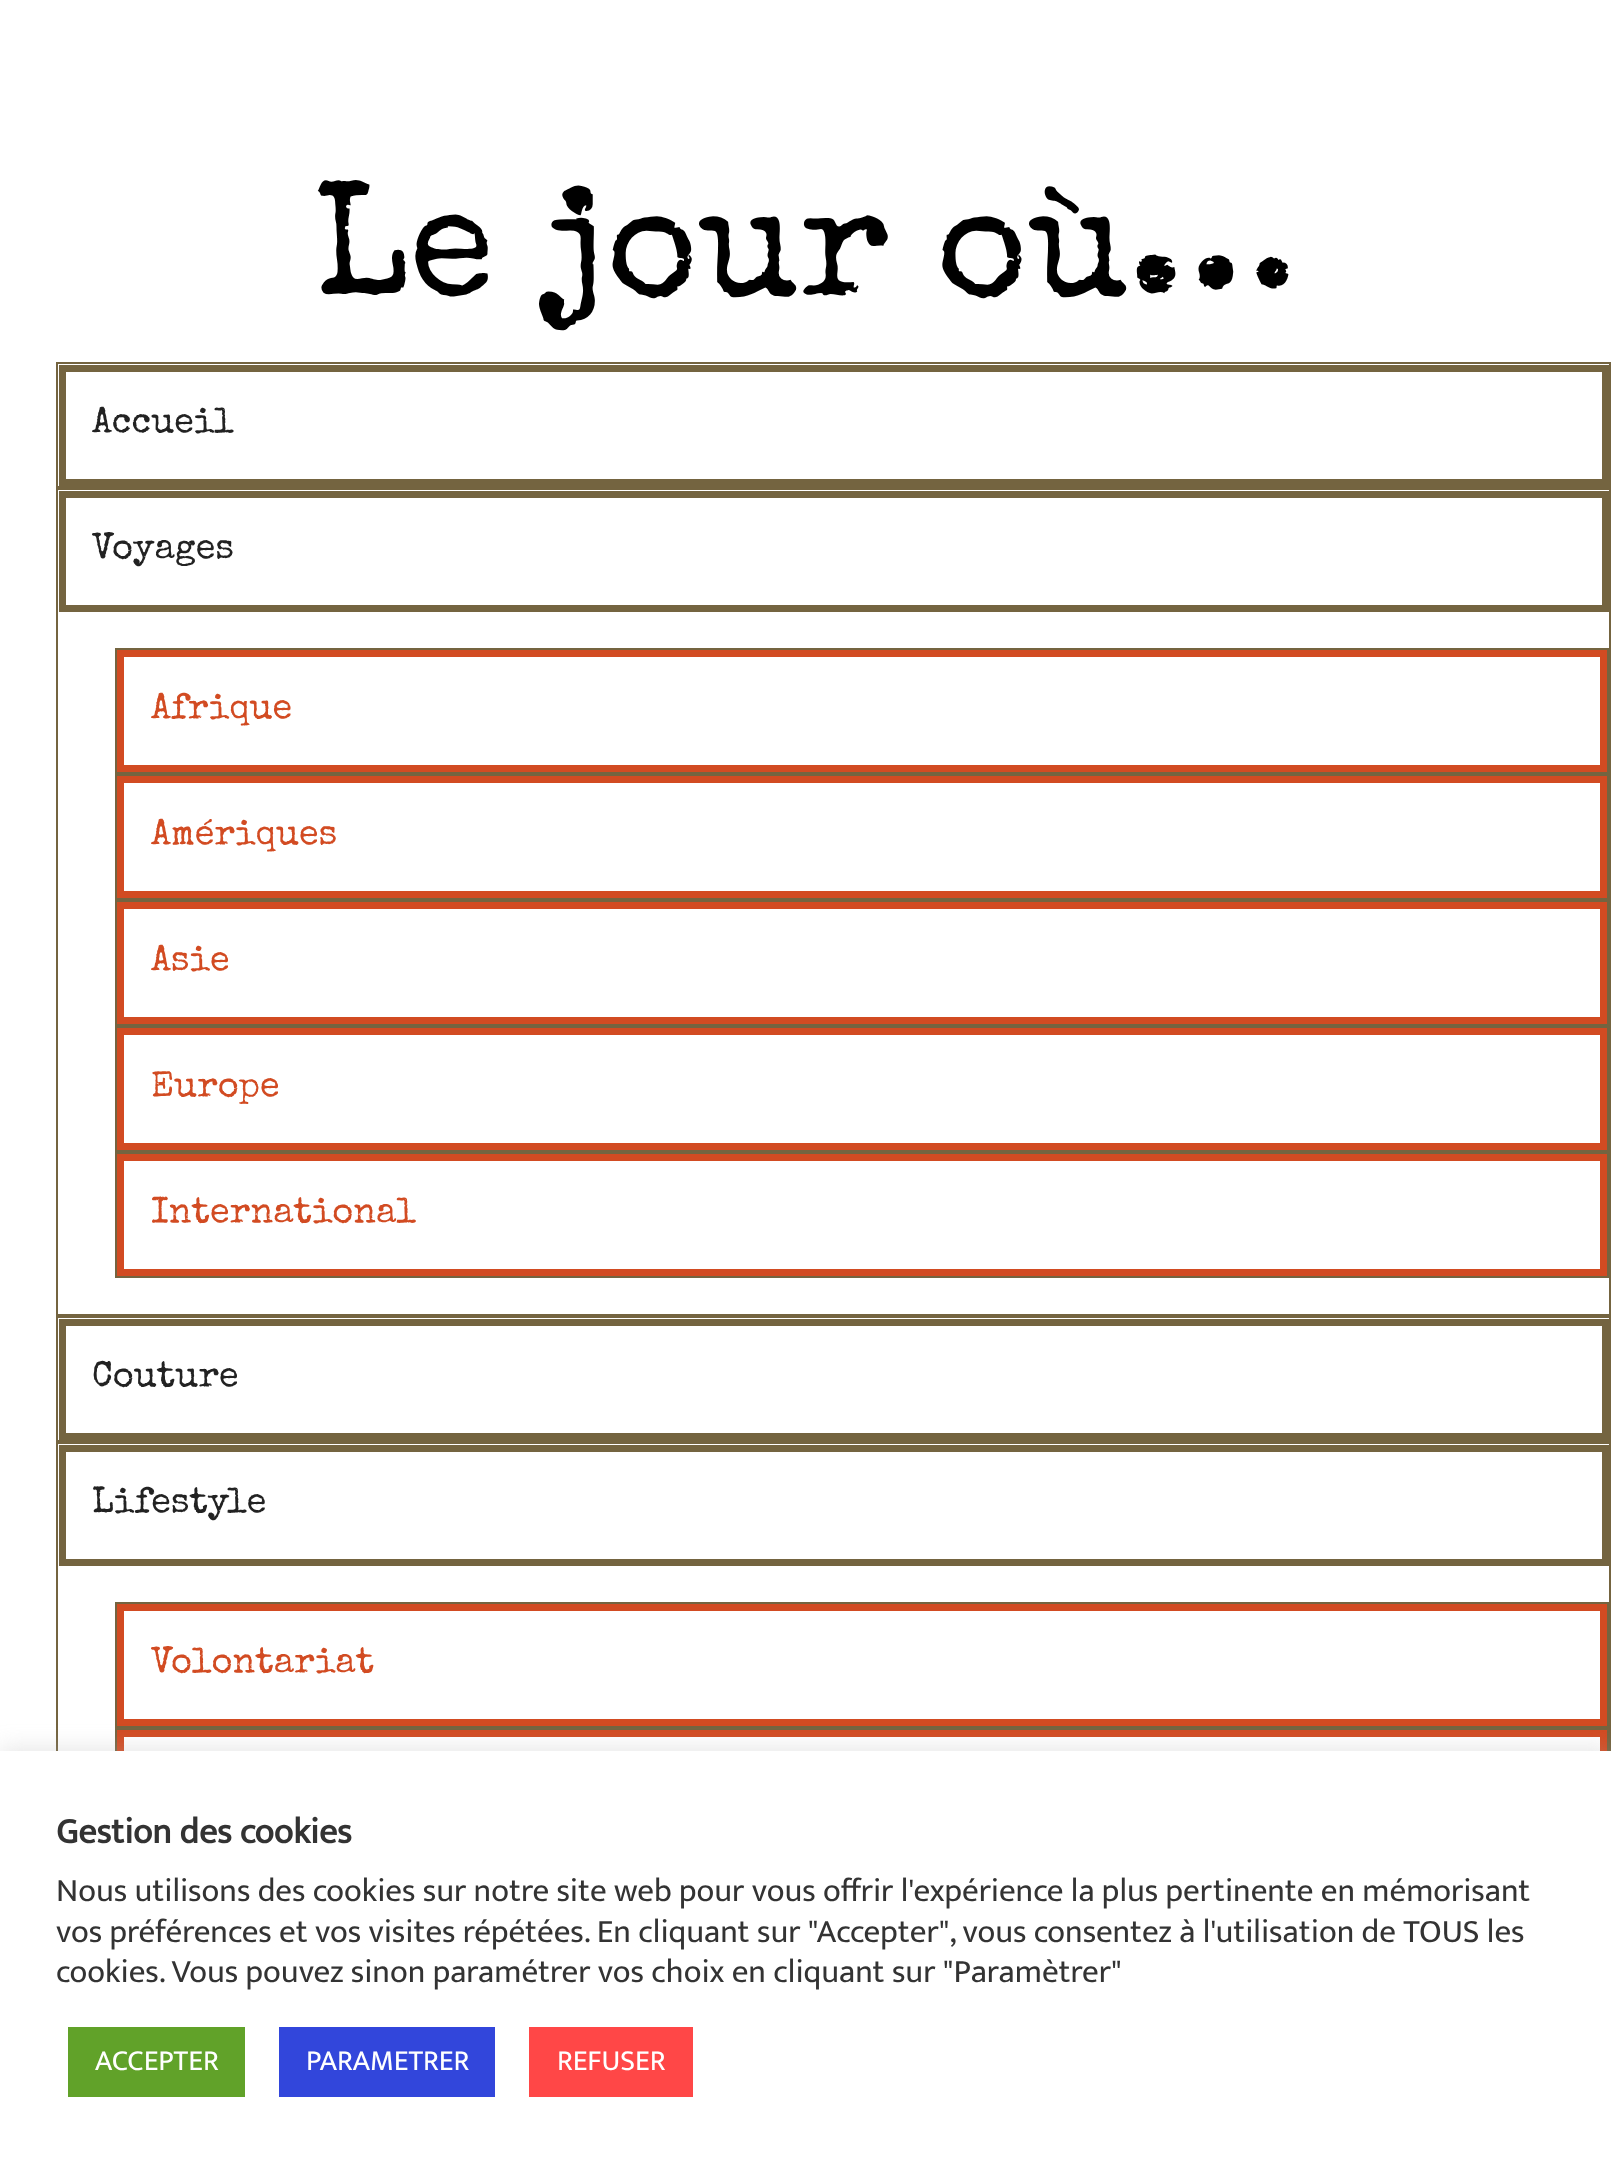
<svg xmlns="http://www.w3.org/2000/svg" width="1611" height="2163">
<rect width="100%" height="100%" fill="#fff"/>
<text x="314" y="293" style="font-family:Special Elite;font-size:157.5px;fill:#000">Le jour où…</text>
<rect x="57" y="363" width="1553" height="124" fill="none" stroke="#746440" stroke-width="2"/>
<rect x="62.5" y="368.5" width="1543" height="114" fill="none" stroke="#746440" stroke-width="7"/>
<text x="92" y="432" style="font-family:Special Elite;font-size:36px;fill:#222">Accueil</text>
<rect x="57" y="489" width="1553" height="826" fill="none" stroke="#746440" stroke-width="2"/>
<rect x="62.5" y="494.5" width="1543" height="114" fill="none" stroke="#746440" stroke-width="7"/>
<text x="92" y="558" style="font-family:Special Elite;font-size:36px;fill:#222">Voyages</text>
<rect x="116" y="649" width="1492" height="124" fill="none" stroke="#746440" stroke-width="2"/>
<rect x="120.5" y="653.5" width="1483" height="115" fill="none" stroke="#d24b22" stroke-width="7"/>
<text x="151" y="718" style="font-family:Special Elite;font-size:36px;fill:#d24b22">Afrique</text>
<rect x="116" y="775" width="1492" height="124" fill="none" stroke="#746440" stroke-width="2"/>
<rect x="120.5" y="779.5" width="1483" height="115" fill="none" stroke="#d24b22" stroke-width="7"/>
<text x="151" y="844" style="font-family:Special Elite;font-size:36px;fill:#d24b22">Amériques</text>
<rect x="116" y="901" width="1492" height="124" fill="none" stroke="#746440" stroke-width="2"/>
<rect x="120.5" y="905.5" width="1483" height="115" fill="none" stroke="#d24b22" stroke-width="7"/>
<text x="151" y="970" style="font-family:Special Elite;font-size:36px;fill:#d24b22">Asie</text>
<rect x="116" y="1027" width="1492" height="124" fill="none" stroke="#746440" stroke-width="2"/>
<rect x="120.5" y="1031.5" width="1483" height="115" fill="none" stroke="#d24b22" stroke-width="7"/>
<text x="151" y="1096" style="font-family:Special Elite;font-size:36px;fill:#d24b22">Europe</text>
<rect x="116" y="1153" width="1492" height="124" fill="none" stroke="#746440" stroke-width="2"/>
<rect x="120.5" y="1157.5" width="1483" height="115" fill="none" stroke="#d24b22" stroke-width="7"/>
<text x="151" y="1222" style="font-family:Special Elite;font-size:36px;fill:#d24b22">International</text>
<rect x="57" y="1317" width="1553" height="124" fill="none" stroke="#746440" stroke-width="2"/>
<rect x="62.5" y="1322.5" width="1543" height="114" fill="none" stroke="#746440" stroke-width="7"/>
<text x="92" y="1386" style="font-family:Special Elite;font-size:36px;fill:#222">Couture</text>
<rect x="57" y="1443" width="1553" height="574" fill="none" stroke="#746440" stroke-width="2"/>
<rect x="62.5" y="1448.5" width="1543" height="114" fill="none" stroke="#746440" stroke-width="7"/>
<text x="92" y="1512" style="font-family:Special Elite;font-size:36px;fill:#222">Lifestyle</text>
<rect x="116" y="1603" width="1492" height="124" fill="none" stroke="#746440" stroke-width="2"/>
<rect x="120.5" y="1607.5" width="1483" height="115" fill="none" stroke="#d24b22" stroke-width="7"/>
<text x="151" y="1672" style="font-family:Special Elite;font-size:36px;fill:#d24b22">Volontariat</text>
<rect x="116" y="1729" width="1492" height="124" fill="none" stroke="#746440" stroke-width="2"/>
<rect x="120.5" y="1733.5" width="1483" height="115" fill="none" stroke="#d24b22" stroke-width="7"/>
<rect y="1748" width="1611" height="414" fill="#acabab4d" filter="blur(11px)"/>
<rect y="1751" width="1611" height="412" fill="#fff"/>
<text x="56" y="1843" style="font-family:Mukta Mahee;font-size:36px;font-weight:bold;fill:#333">Gestion des cookies</text>
<text x="56" y="1901" style="font-family:Mukta Mahee;font-size:33px;fill:#333">Nous utilisons des cookies sur notre site web pour vous offrir l'expérience la plus pertinente en mémorisant</text>
<text x="56" y="1942" style="font-family:Mukta Mahee;font-size:33px;fill:#333">vos préférences et vos visites répétées. En cliquant sur "Accepter", vous consentez à l'utilisation de TOUS les</text>
<text x="56" y="1982" style="font-family:Mukta Mahee;font-size:33px;fill:#333">cookies. Vous pouvez sinon paramétrer vos choix en cliquant sur "Paramètrer"</text>
<rect x="68" y="2027" width="177" height="70" fill="#61a229"/>
<text x="95" y="2070" style="font-family:Mukta Mahee;font-size:29.25px;fill:#fff">ACCEPTER</text>
<rect x="279" y="2027" width="216" height="70" fill="#3246db"/>
<text x="306" y="2070" style="font-family:Mukta Mahee;font-size:29.25px;fill:#fff">PARAMETRER</text>
<rect x="529" y="2027" width="164" height="70" fill="#ff4747"/>
<text x="557" y="2070" style="font-family:Mukta Mahee;font-size:29.25px;fill:#fff">REFUSER</text>
</svg>
